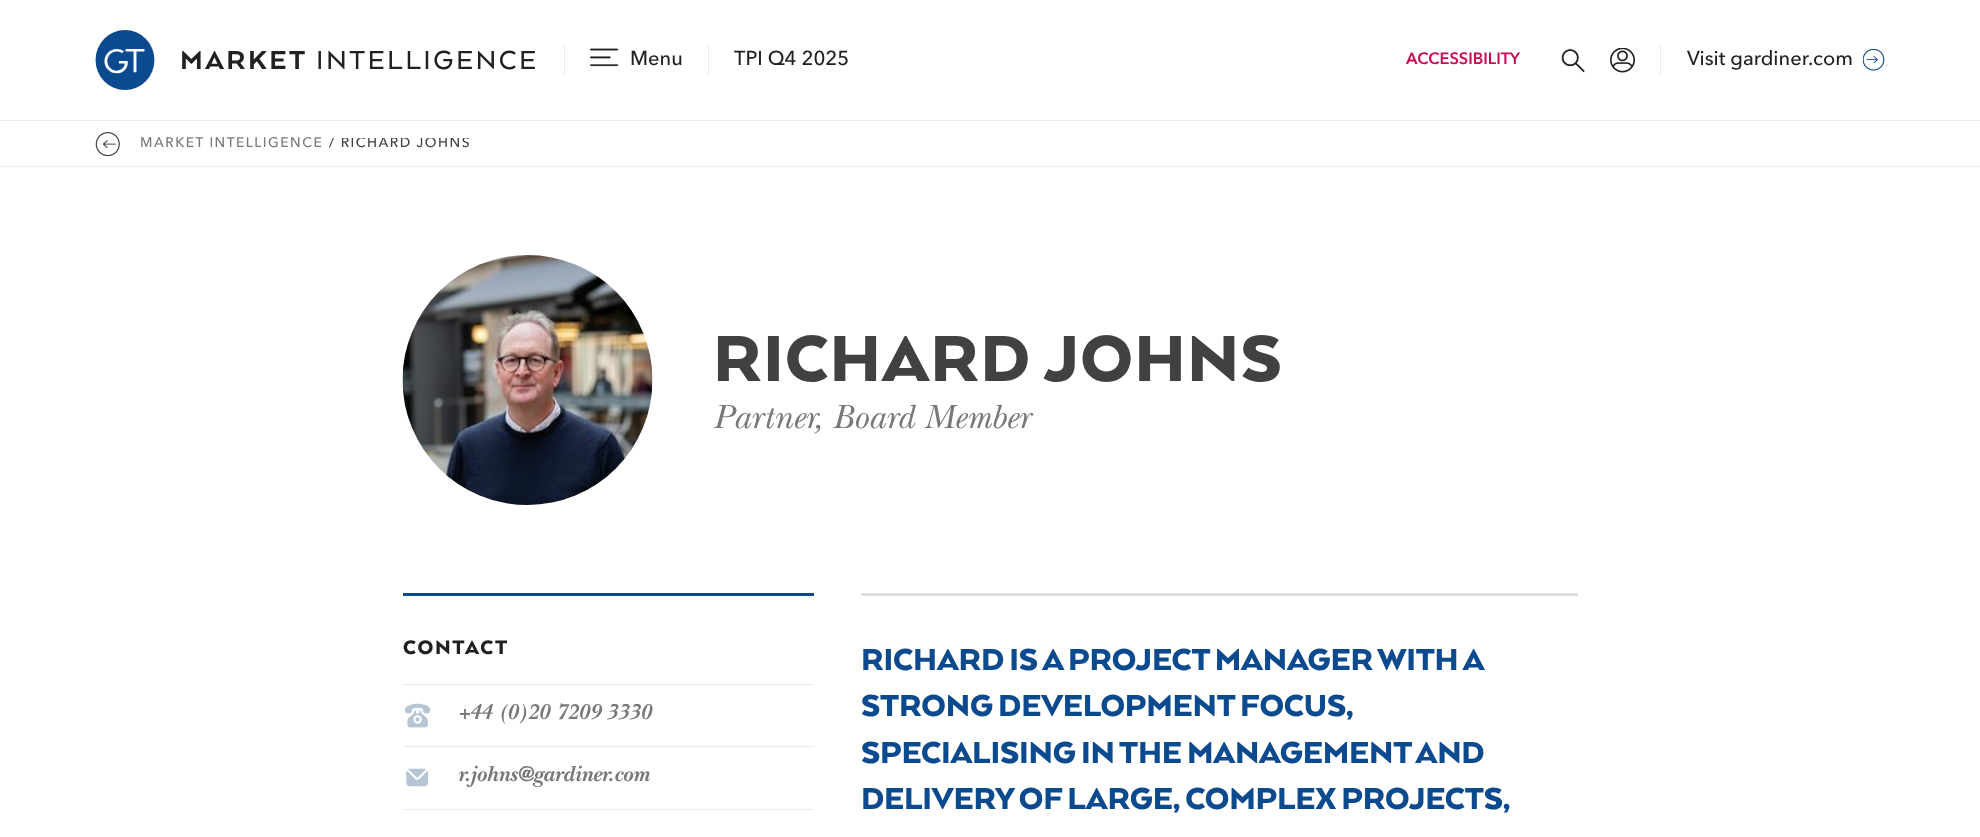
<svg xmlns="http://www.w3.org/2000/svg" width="1980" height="837">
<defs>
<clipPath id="clip1"><rect x="329" y="138" width="142" height="13"/></clipPath>
</defs>
<rect width="100%" height="100%" fill="#fff"/>
<image x="95" y="30" width="60" height="60" href="media/1.png"/>
<text x="180" y="69" style="font-family:'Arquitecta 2';font-size:30px;font-weight:900;letter-spacing:2.5px;fill:#212121">MARKET</text>
<text x="316" y="69" style="font-family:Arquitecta;font-size:30px;font-weight:500;letter-spacing:2.5px;fill:#212121">INTELLIGENCE</text>
<rect x="708" y="45" width="1" height="30" fill="#ebebeb"/>
<rect x="564" y="45" width="1" height="30" fill="#ebebeb"/>
<image x="590" y="48" width="29" height="19" href="media/2.png"/>
<text x="630" y="65" style="font-family:Avenir Next;font-size:20px;font-weight:500;fill:#212121">Menu</text>
<text x="734" y="65" style="font-family:Avenir Next;font-size:20px;font-weight:500;fill:#212121">TPI Q4 2025</text>
<text x="1406" y="64" style="font-family:Avenir Next;font-size:16.25px;font-weight:bold;fill:#cd0857">ACCESSIBILITY</text>
<image x="1561" y="48" width="24" height="25" href="media/3.png"/>
<image x="1610" y="48" width="25" height="25" href="media/4.png"/>
<rect x="1660" y="45" width="1" height="30" fill="#ebebeb"/>
<text x="1687" y="65" style="font-family:Avenir Next;font-size:20px;font-weight:500;fill:#212121">Visit gardiner.com</text>
<image x="1863" y="49" width="22" height="22" href="media/5.png"/>
<rect y="120" width="1980" height="1" fill="#ebebeb"/>
<rect y="166" width="1980" height="1" fill="#ebebeb"/>
<image x="95" y="132" width="25" height="24" href="media/6.png"/>
<text x="140" y="147" style="font-family:Avenir Next;font-size:13.75px;font-weight:500;letter-spacing:1.5px;fill:#797879">MARKET INTELLIGENCE</text>
<g clip-path="url(#clip1)">
<text x="329" y="147" style="font-family:Avenir Next;font-size:13.75px;font-weight:500;letter-spacing:1.5px;fill:#414042">/ RICHARD JOHNS</text>
</g>
<image x="402" y="255" width="251" height="250" href="media/7.png"/>
<text x="713" y="381" style="font-family:Arquitecta;font-size:75px;font-weight:900;letter-spacing:1.25px;fill:#414042">RICHARD JOHNS</text>
<text x="713" y="428" style="font-family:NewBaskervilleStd;font-size:35px;font-style:italic;fill:#797879">Partner, Board Member</text>
<rect x="403" y="593" width="411" height="3" fill="#0b4a8e"/>
<text x="403" y="654" style="font-family:Arquitecta;font-size:22.5px;font-weight:900;letter-spacing:1.75px;fill:#212121">CONTACT</text>
<rect x="403" y="809" width="411" height="1" fill="#ebebeb"/>
<rect x="403" y="684" width="411" height="1" fill="#ebebeb"/>
<image x="405" y="703" width="26" height="25" href="media/8.png"/>
<text x="458" y="719" style="font-family:NewBaskervilleStd;font-size:22.5px;font-weight:bold;font-style:italic;fill:#797879">+44 (0)20 7209 3330</text>
<rect x="403" y="746" width="411" height="1" fill="#ebebeb"/>
<image x="406" y="768" width="23" height="19" href="media/9.png"/>
<text x="458" y="781" style="font-family:NewBaskervilleStd;font-size:22.5px;font-weight:bold;font-style:italic;fill:#797879">r.johns@gardiner.com</text>
<rect x="861" y="593" width="717" height="3" fill="#dddfe2"/>
<text x="861" y="670" style="font-family:Arquitecta;font-size:35px;font-weight:900;letter-spacing:-0.2px;fill:#0b4a8e">RICHARD IS A PROJECT MANAGER WITH A</text>
<text x="861" y="716" style="font-family:Arquitecta;font-size:35px;font-weight:900;letter-spacing:-0.2px;fill:#0b4a8e">STRONG DEVELOPMENT FOCUS,</text>
<text x="861" y="763" style="font-family:Arquitecta;font-size:35px;font-weight:900;letter-spacing:-0.2px;fill:#0b4a8e">SPECIALISING IN THE MANAGEMENT AND</text>
<text x="861" y="809" style="font-family:Arquitecta;font-size:35px;font-weight:900;letter-spacing:-0.2px;fill:#0b4a8e">DELIVERY OF LARGE, COMPLEX PROJECTS,</text>
</svg>
